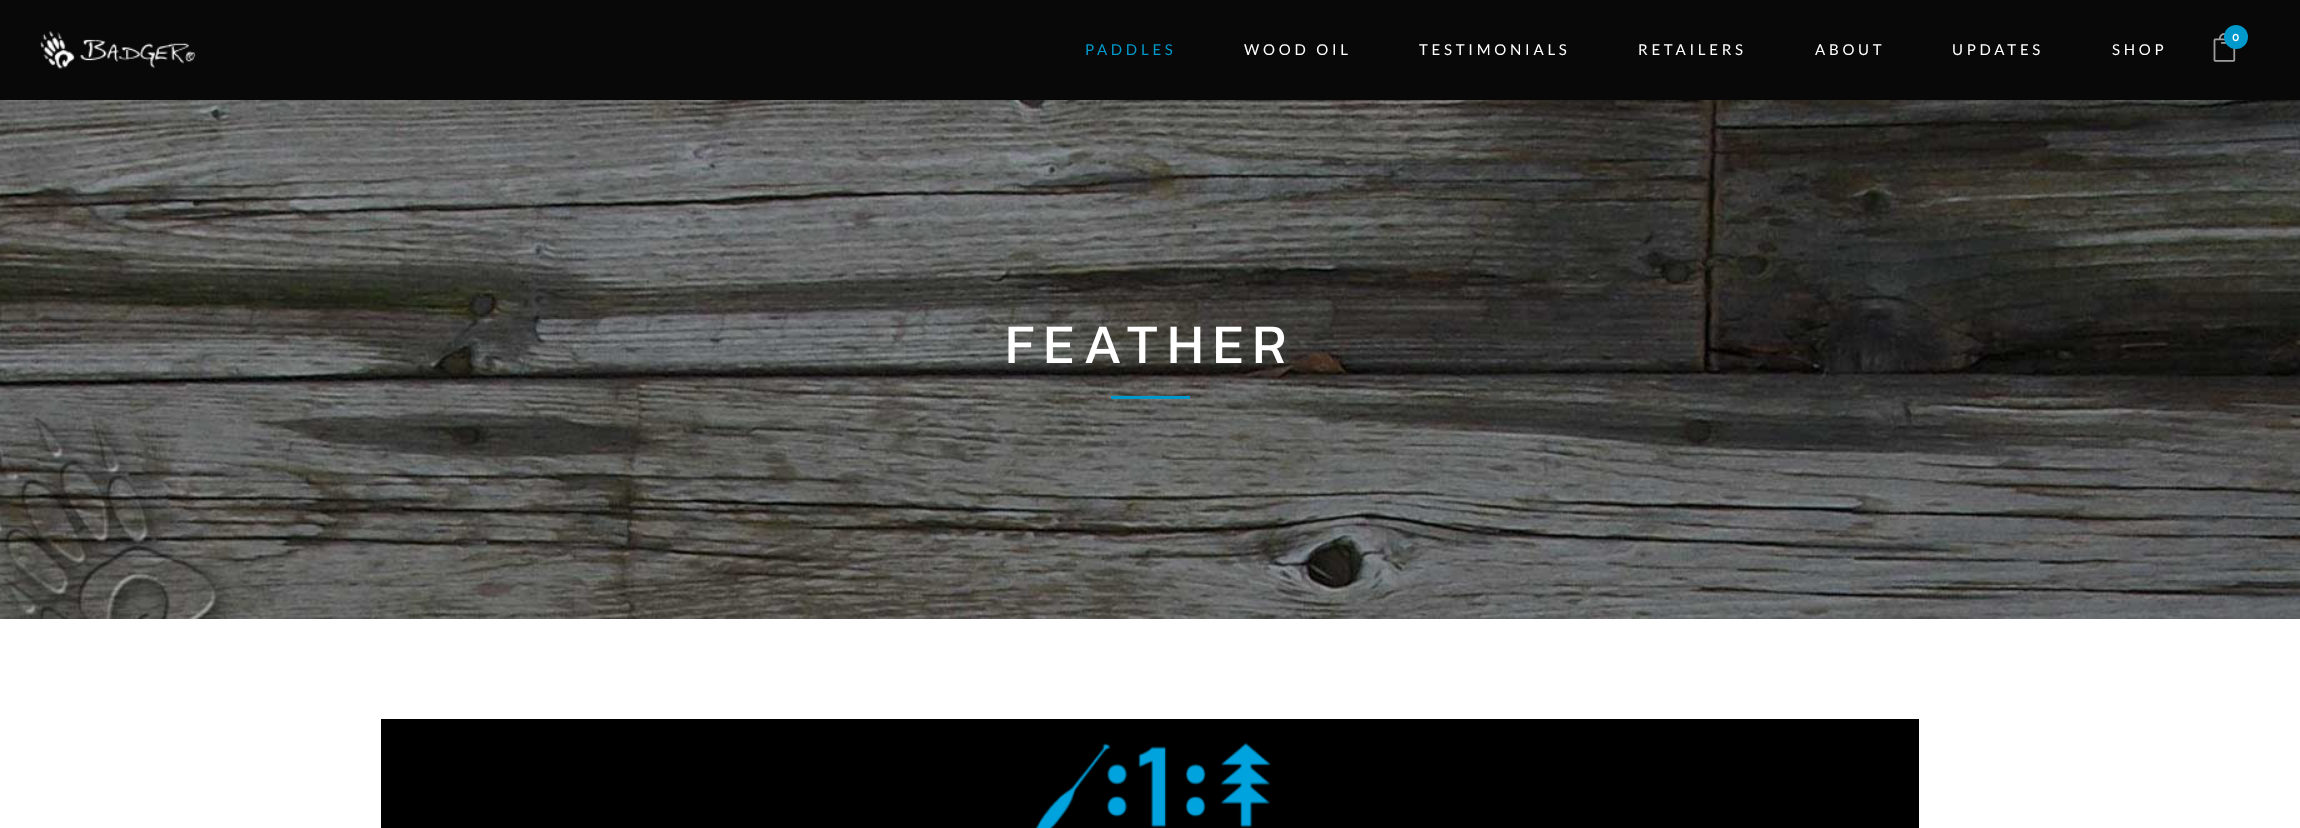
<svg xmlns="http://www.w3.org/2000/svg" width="2300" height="828">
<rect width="100%" height="100%" fill="#fff"/>
<rect width="2300" height="100" fill="#080808"/>
<image x="40" y="30" width="156" height="39" href="media/1.png"/>
<image x="2213" y="33" width="23" height="29" href="media/2.png"/>
<circle cx="2236" cy="37" r="12" fill="#09c"/>
<text x="2232" y="41" style="font-family:Raleway;font-size:12px;font-weight:600;fill:#fff">0</text>
<text x="1085" y="55" style="font-family:Lato;font-size:15px;letter-spacing:3.75px;fill:#09c">PADDLES</text>
<text x="1244" y="55" style="font-family:Lato;font-size:15px;letter-spacing:3.75px;fill:#fff">WOOD OIL</text>
<text x="1419" y="55" style="font-family:Lato;font-size:15px;letter-spacing:3.75px;fill:#fff">TESTIMONIALS</text>
<text x="1638" y="55" style="font-family:Lato;font-size:15px;letter-spacing:3.75px;fill:#fff">RETAILERS</text>
<text x="1815" y="55" style="font-family:Lato;font-size:15px;letter-spacing:3.75px;fill:#fff">ABOUT</text>
<text x="1952" y="55" style="font-family:Lato;font-size:15px;letter-spacing:3.75px;fill:#fff">UPDATES</text>
<text x="2112" y="55" style="font-family:Lato;font-size:15px;letter-spacing:3.75px;fill:#fff">SHOP</text>
<image x="0" y="100" width="2300" height="519" href="media/3.png"/>
<text x="1005" y="363" style="font-family:Kanit;font-size:56.25px;letter-spacing:8.75px;fill:#fff">FEATHER</text>
<rect x="1111" y="396" width="79" height="3" fill="#09c"/>
<rect x="381" y="719" width="1538" height="109" fill="#000"/>
<image x="1036" y="742" width="235" height="86" href="media/4.png"/>
</svg>
